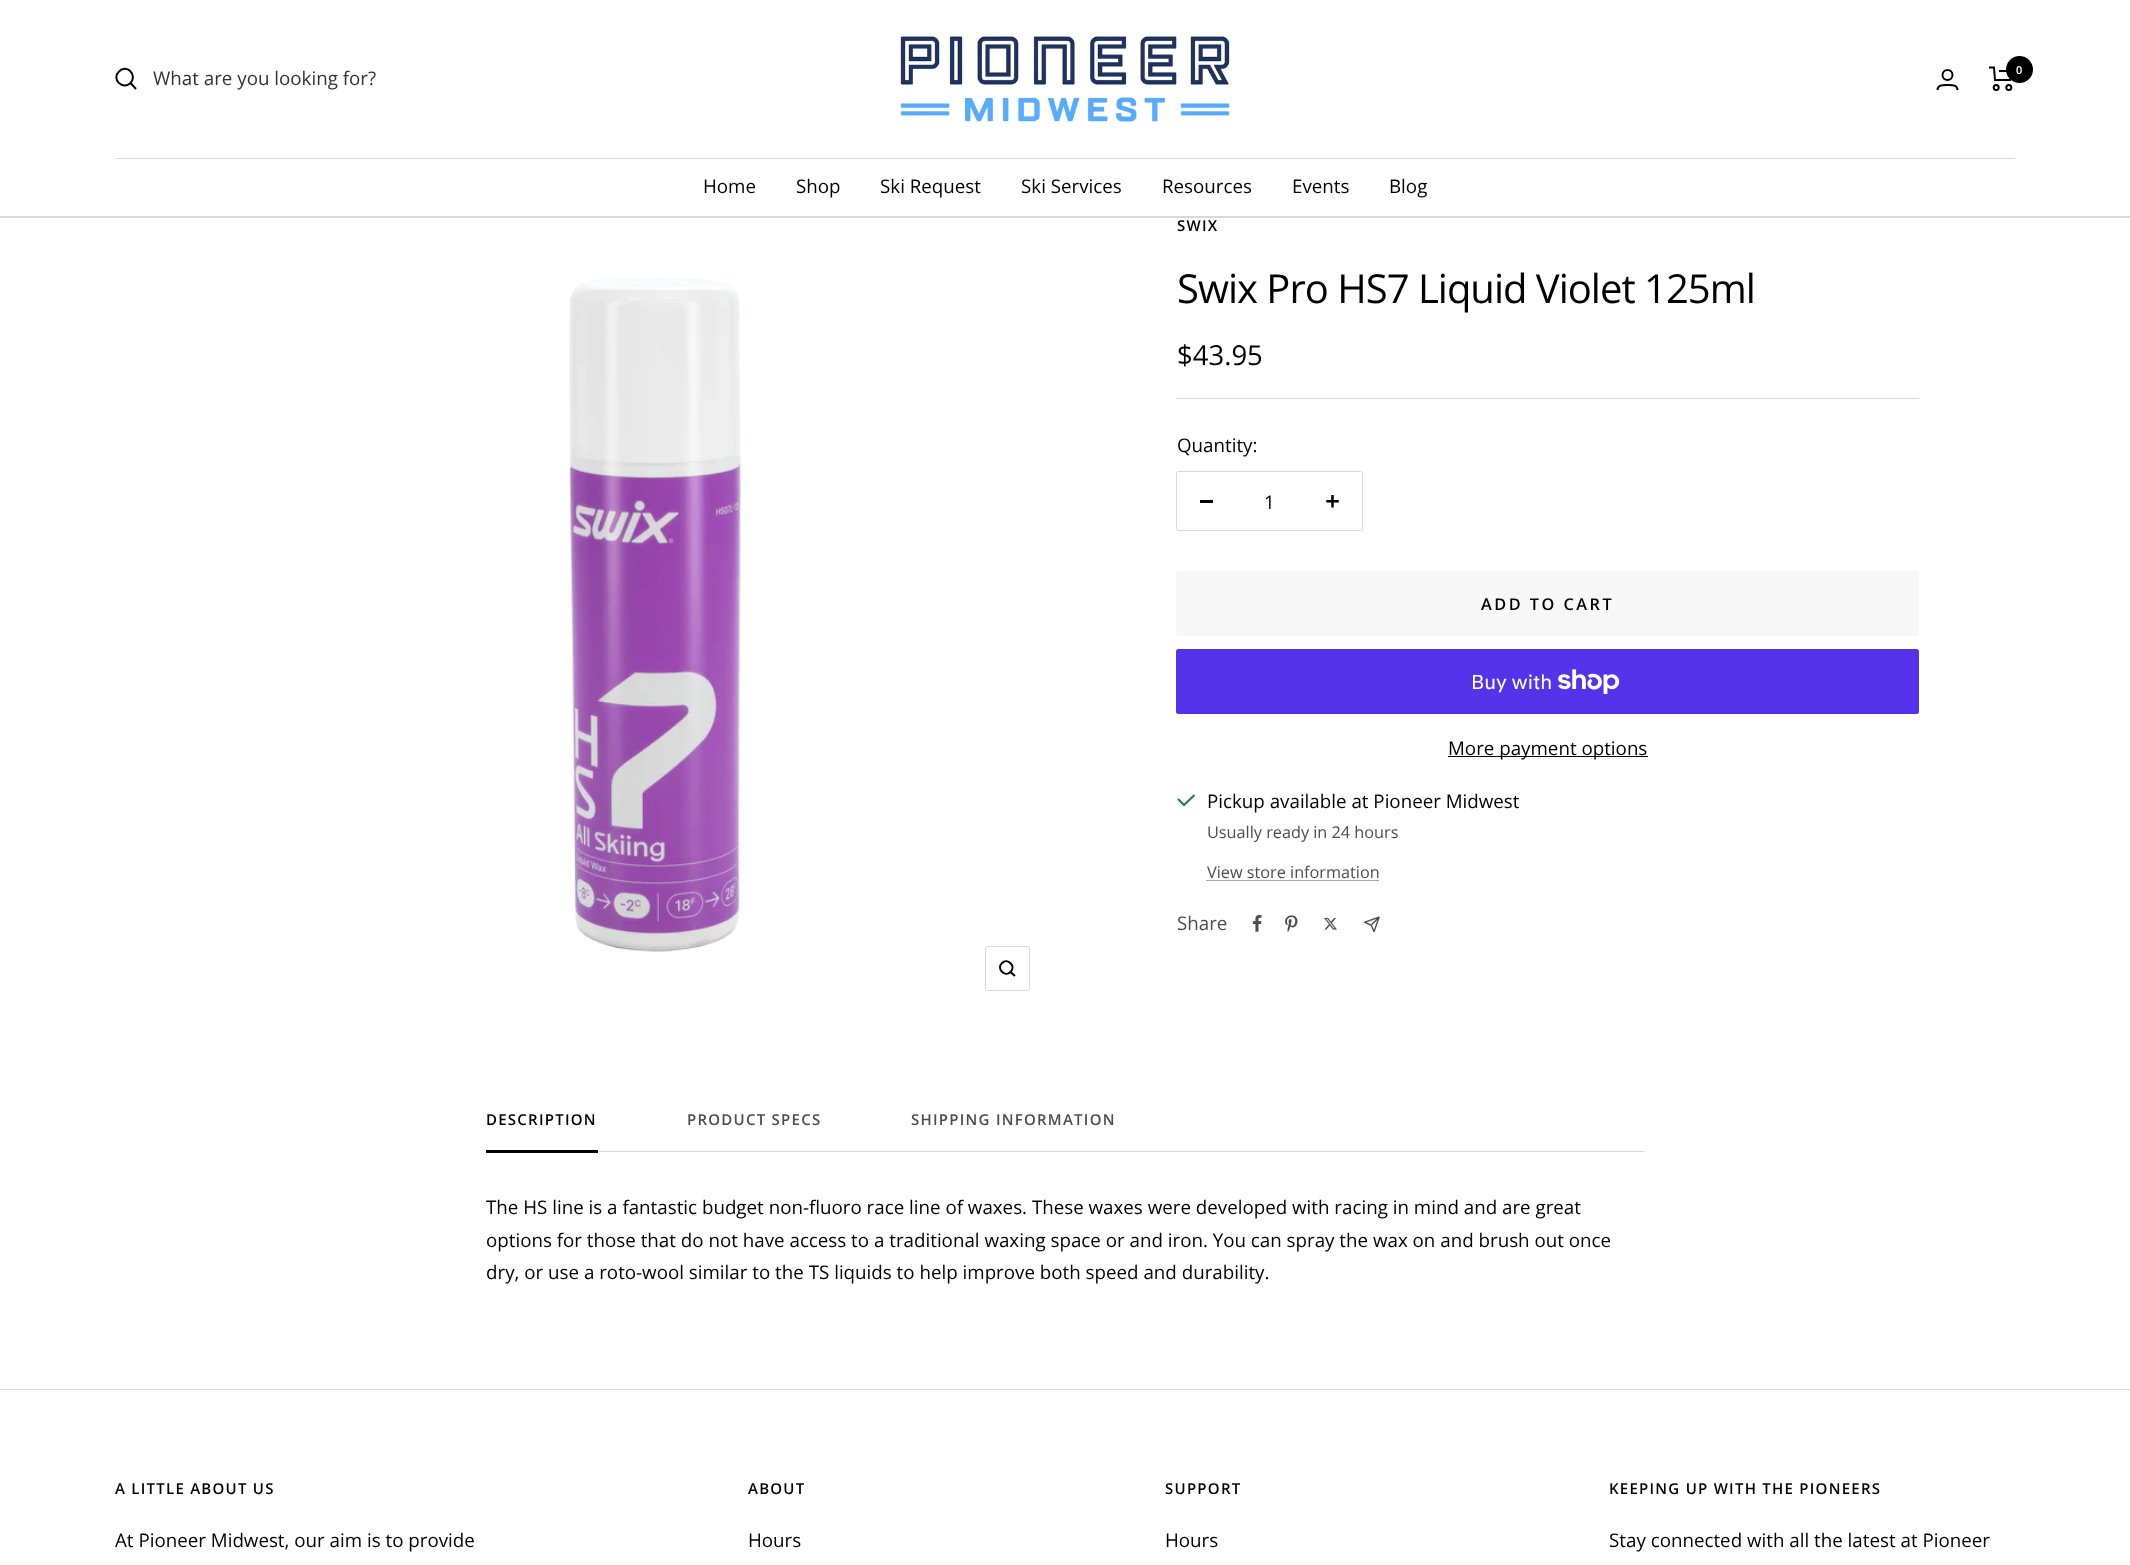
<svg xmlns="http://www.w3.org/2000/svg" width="2130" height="1565">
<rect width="100%" height="100%" fill="#fff"/>
<rect y="216" width="2130" height="2" fill="#d9d9d9"/>
<path d="M130.5 83c7.5-8-4-19.5-11.5-11.5c-8 7.5 3.5 19 11.5 11.5zm0 0l5.5 6" fill="none" stroke="#000" stroke-width="2"/>
<text x="153" y="85" style="font-family:Open Sans;font-size:18.75px;fill:#333">What are you looking for?</text>
<image x="900" y="36" width="330" height="88" href="media/1.png"/>
<circle cx="1947.5" cy="75" r="5" fill="none" stroke="#000" stroke-width="2"/>
<path d="M1937.5 90c0-5.5 6-5 10-5c4 0 10-.5 10 5" fill="none" stroke="#000" stroke-width="2"/>
<path d="M1989 67.5h5l1 12.5h15l2.5-9h-13.5" fill="none" stroke="#000" stroke-width="2"/>
<circle cx="1996.2" cy="87.5" r="2.5" fill="none" stroke="#000" stroke-width="2"/>
<circle cx="2008.8" cy="87.5" r="2.5" fill="none" stroke="#000" stroke-width="2"/>
<circle cx="2019.5" cy="69.5" r="13.5" fill="#000"/>
<text x="2016" y="74" style="font-family:Open Sans;font-size:11px;font-weight:600;fill:#fff">0</text>
<rect x="115" y="158" width="1900" height="1" fill="#d9d9d9"/>
<text x="703" y="193" style="font-family:Open Sans;font-size:18.75px;fill:#000">Home</text>
<text x="796" y="193" style="font-family:Open Sans;font-size:18.75px;fill:#000">Shop</text>
<text x="880" y="193" style="font-family:Open Sans;font-size:18.75px;fill:#000">Ski Request</text>
<text x="1021" y="193" style="font-family:Open Sans;font-size:18.75px;fill:#000">Ski Services</text>
<text x="1162" y="193" style="font-family:Open Sans;font-size:18.75px;fill:#000">Resources</text>
<text x="1292" y="193" style="font-family:Open Sans;font-size:18.75px;fill:#000">Events</text>
<text x="1389" y="193" style="font-family:Open Sans;font-size:18.75px;fill:#000">Blog</text>
<image x="569" y="277" width="172" height="675" href="media/2.png"/>
<rect x="985.5" y="946.5" width="44" height="44" rx="2" fill="none" stroke="#d9d9d9"/>
<path d="M1010.5 972c6-6-3-14.5-8.5-9c-6 6 3 14.5 8.5 9zm0 0l4.5 4" fill="none" stroke="#000" stroke-width="2"/>
<rect x="1176" y="398" width="743" height="1" fill="#d9d9d9"/>
<text x="1177" y="231" style="font-family:Open Sans;font-size:15px;font-weight:600;letter-spacing:1.25px;fill:#000">SWIX</text>
<text x="1177" y="303" style="font-family:Open Sans;font-size:40px;letter-spacing:-1px;fill:#000">Swix Pro HS7 Liquid Violet 125ml</text>
<text x="1177" y="365" style="font-family:Open Sans;font-size:27.5px;fill:#000">$43.95</text>
<text x="1177" y="452" style="font-family:Open Sans;font-size:18.75px;fill:#000">Quantity:</text>
<rect x="1176.5" y="471.5" width="186" height="59" rx="2" fill="none" stroke="#d9d9d9"/>
<rect x="1200" y="500" width="13" height="3" fill="#000"/>
<text x="1264" y="509" style="font-family:Open Sans;font-size:18.75px;fill:#000">1</text>
<image x="1326" y="495" width="13" height="13" href="media/3.png"/>
<rect x="1176" y="571" width="743" height="65" rx="2.5" fill="#f7f7f7"/>
<text x="1481" y="610" style="font-family:Open Sans;font-size:16.25px;font-weight:600;letter-spacing:2.5px;fill:#000">ADD TO CART</text>
<rect x="1176" y="649" width="743" height="65" rx="2.5" fill="#5433eb"/>
<text x="1471" y="689" style="font-family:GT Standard;font-size:20px;fill:#fff">Buy with</text>
<image x="1558" y="669" width="62" height="25" href="media/4.png"/>
<rect x="1448" y="756" width="200" height="1" fill="#000"/>
<text x="1448" y="755" style="font-family:Open Sans;font-size:18.75px;fill:#000">More payment options</text>
<path d="M1178 799l6 6l10.5-10" fill="none" stroke="#168342" stroke-width="2"/>
<text x="1207" y="808" style="font-family:Open Sans;font-size:18.75px;fill:#000">Pickup available at Pioneer Midwest</text>
<text x="1207" y="838" style="font-family:Open Sans;font-size:16.25px;fill:#4d4d4d">Usually ready in 24 hours</text>
<text x="1207" y="878" style="font-family:Open Sans;font-size:16.25px;fill:#4d4d4d">View store information</text>
<rect x="1206" y="880" width="173" height="1" fill="#a6a6a6"/>
<text x="1177" y="930" style="font-family:Open Sans;font-size:18.75px;fill:#4d4d4d">Share</text>
<image x="1252" y="915" width="10" height="17" href="media/5.png"/>
<image x="1285" y="915" width="13" height="17" href="media/6.png"/>
<image x="1324" y="917" width="13" height="13" href="media/7.png"/>
<image x="1364" y="916" width="16" height="17" href="media/8.png"/>
<rect x="598" y="1151" width="1046" height="1" fill="#d9d9d9"/>
<text x="486" y="1125" style="font-family:Open Sans;font-size:15px;font-weight:600;letter-spacing:1.25px;fill:#000">DESCRIPTION</text>
<text x="687" y="1125" style="font-family:Open Sans;font-size:15px;font-weight:600;letter-spacing:1.25px;fill:#4d4d4d">PRODUCT SPECS</text>
<text x="911" y="1125" style="font-family:Open Sans;font-size:15px;font-weight:600;letter-spacing:1.25px;fill:#4d4d4d">SHIPPING INFORMATION</text>
<rect x="486" y="1150" width="112" height="3" fill="#000"/>
<text x="486" y="1214" style="font-family:Open Sans;font-size:18.75px;fill:#000">The HS line is a fantastic budget non-fluoro race line of waxes. These waxes were developed with racing in mind and are great</text>
<text x="486" y="1247" style="font-family:Open Sans;font-size:18.75px;fill:#000">options for those that do not have access to a traditional waxing space or and iron. You can spray the wax on and brush out once</text>
<text x="486" y="1279" style="font-family:Open Sans;font-size:18.75px;fill:#000">dry, or use a roto-wool similar to the TS liquids to help improve both speed and durability.</text>
<rect y="1389" width="2130" height="1" fill="#d9d9d9"/>
<text x="115" y="1494" style="font-family:Open Sans;font-size:15px;font-weight:600;letter-spacing:1.25px;fill:#000">A LITTLE ABOUT US</text>
<text x="115" y="1547" style="font-family:Open Sans;font-size:18.75px;fill:#000">At Pioneer Midwest, our aim is to provide</text>
<text x="748" y="1494" style="font-family:Open Sans;font-size:15px;font-weight:600;letter-spacing:1.25px;fill:#000">ABOUT</text>
<text x="748" y="1547" style="font-family:Open Sans;font-size:18.75px;fill:#000">Hours</text>
<text x="1165" y="1494" style="font-family:Open Sans;font-size:15px;font-weight:600;letter-spacing:1.25px;fill:#000">SUPPORT</text>
<text x="1165" y="1547" style="font-family:Open Sans;font-size:18.75px;fill:#000">Hours</text>
<text x="1609" y="1494" style="font-family:Open Sans;font-size:15px;font-weight:600;letter-spacing:1.25px;fill:#000">KEEPING UP WITH THE PIONEERS</text>
<text x="1609" y="1547" style="font-family:Open Sans;font-size:18.75px;fill:#000">Stay connected with all the latest at Pioneer</text>
</svg>
